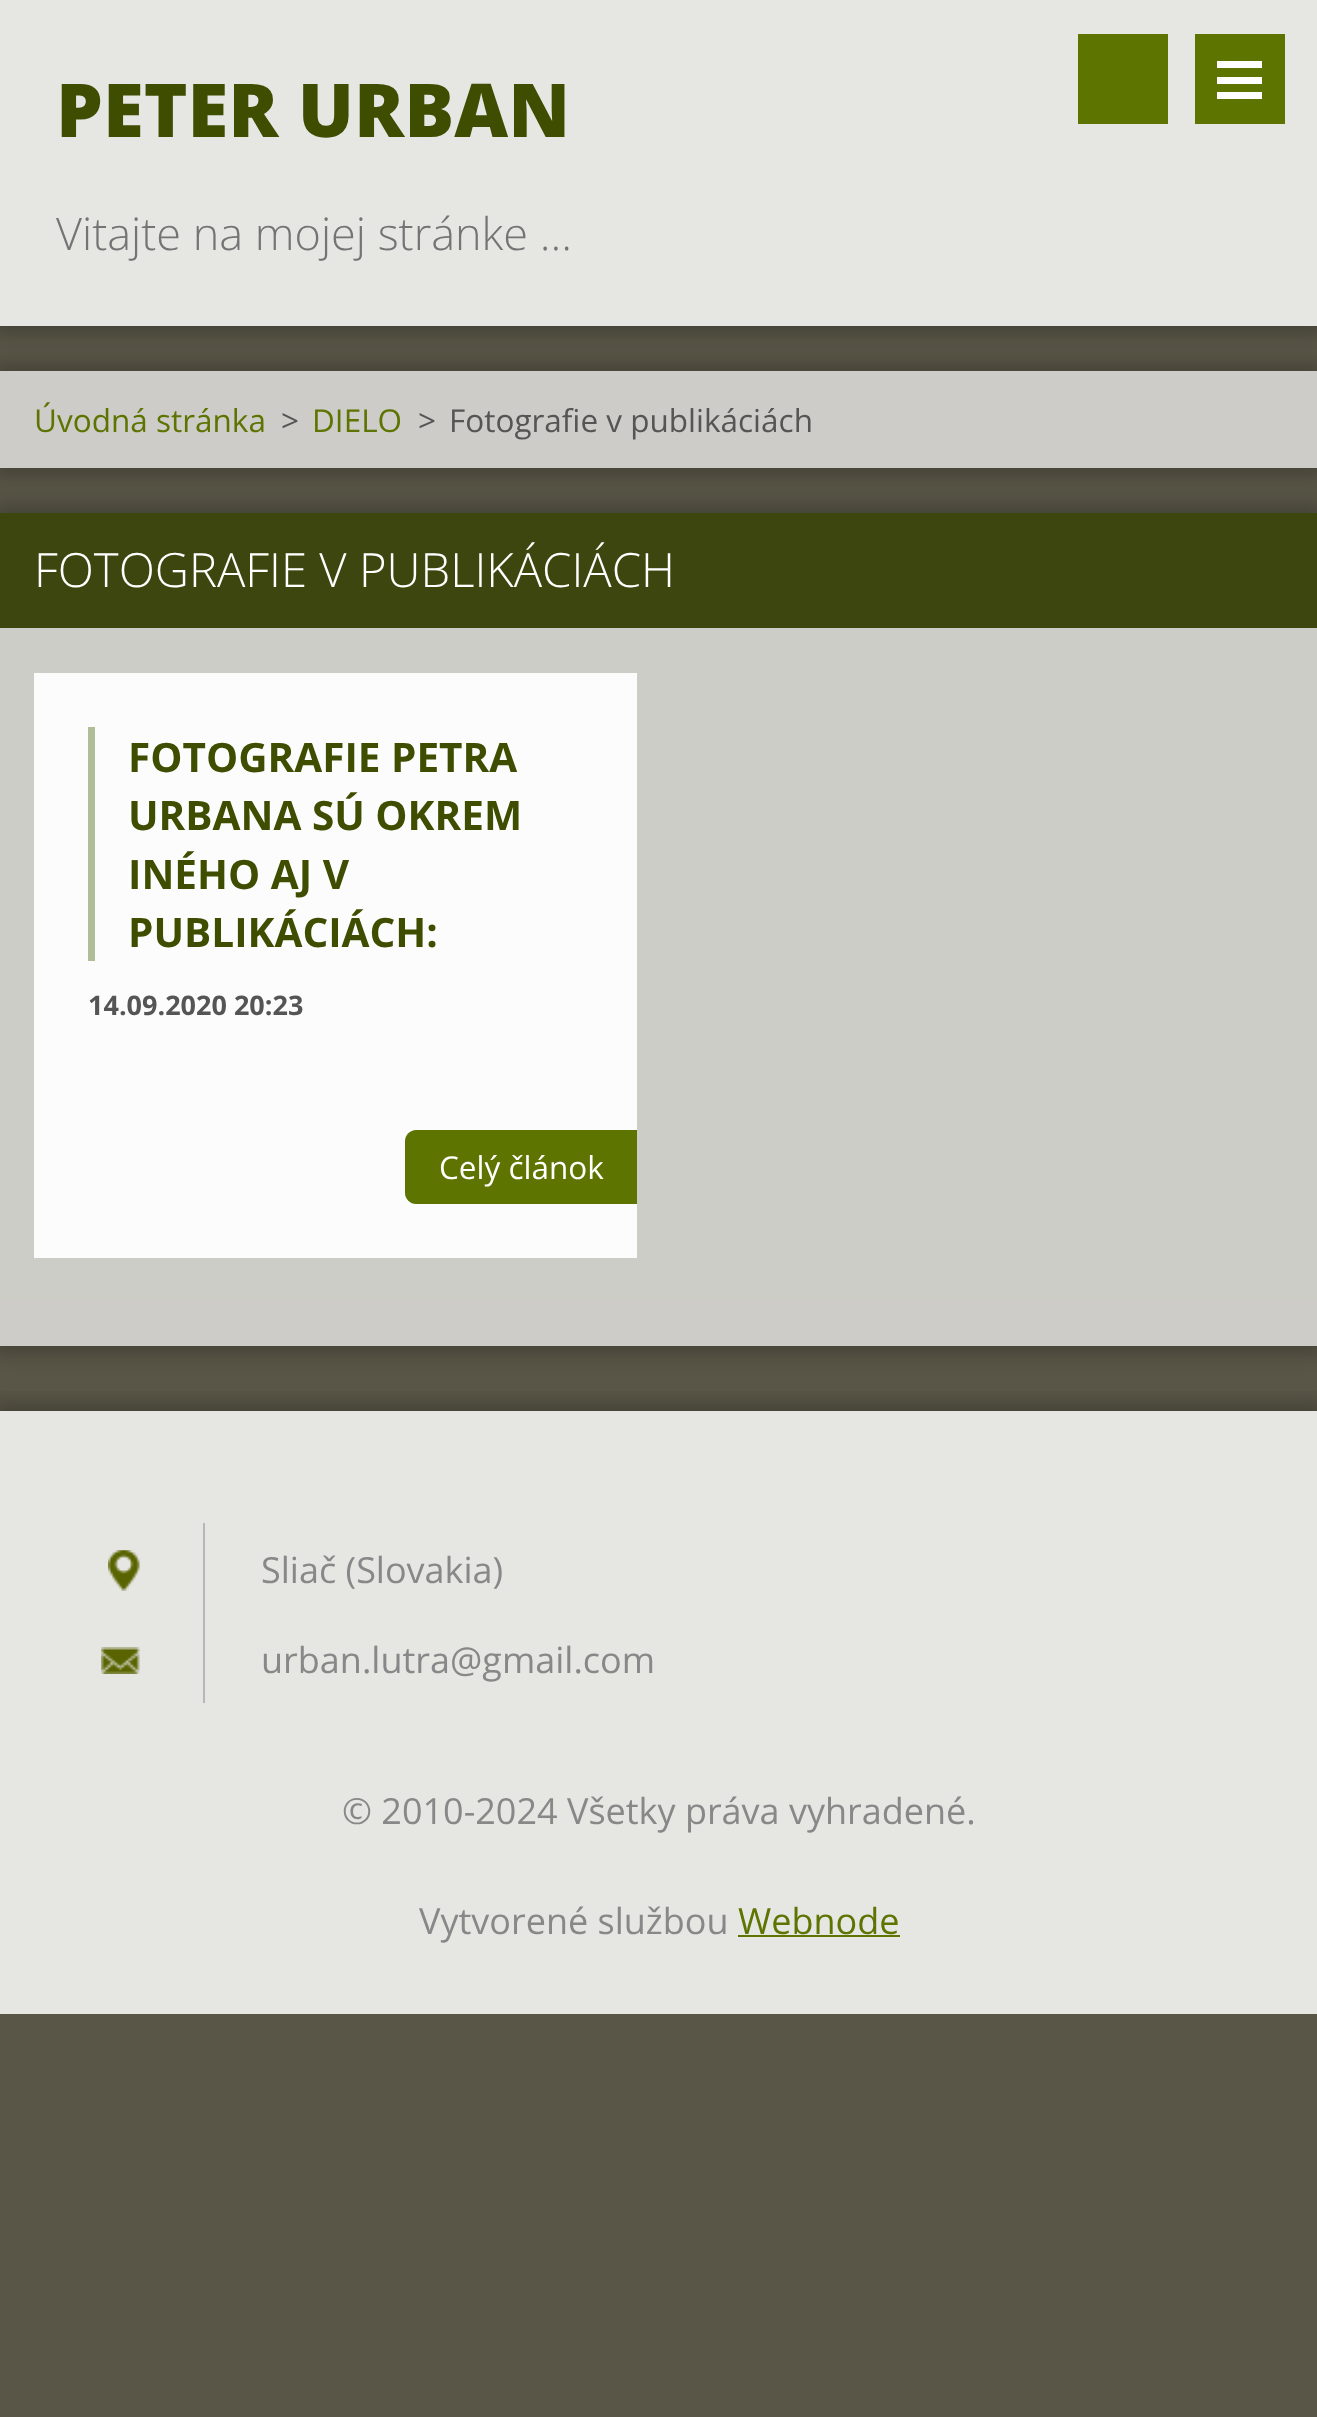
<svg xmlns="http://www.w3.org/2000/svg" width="1317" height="2417">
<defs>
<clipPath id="clip1"><path d="M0 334h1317v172h-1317zm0 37h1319v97h-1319z" clip-rule="evenodd"/></clipPath>
<clipPath id="clip2"><path d="M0 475h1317v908h-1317zm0 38h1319v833h-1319z" clip-rule="evenodd"/></clipPath>
<clipPath id="clip3"><rect x="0" y="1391" width="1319" height="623"/></clipPath>
<clipPath id="clip4"><path d="M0 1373h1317v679h-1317zm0 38h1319v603h-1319z" clip-rule="evenodd"/></clipPath>
</defs>
<rect width="100%" height="100%" fill="#595647"/>
<rect x="-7" y="-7" width="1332" height="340" fill="#00000040" filter="blur(10px)"/>
<rect width="1317" height="326" fill="#e6e6e3"/>
<text x="56" y="137" style="font-family:Open Sans;font-size:74.25px;font-weight:800;fill:#3e4d00">PETER URBAN</text>
<rect x="1078" y="34" width="90" height="90" fill="#5d7400"/>
<rect x="1195" y="34" width="90" height="90" fill="#5d7400"/>
<rect x="1217" y="61" width="45" height="7" fill="#fff"/>
<rect x="1217" y="77" width="45" height="7" fill="#fff"/>
<rect x="1217" y="92" width="45" height="7" fill="#fff"/>
<text x="56" y="250" style="font-family:Open Sans;font-size:45px;font-weight:300;fill:#747474">Vitajte na mojej stránke ...</text>
<g clip-path="url(#clip1)">
<rect x="-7" y="365" width="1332" height="110" fill="#00000040" filter="blur(10px)"/>
</g>
<rect y="371" width="1317" height="97" fill="#ffffffb3"/>
<text x="34" y="432" style="font-family:Open Sans;font-size:31.5px;fill:#5d7400">Úvodná stránka</text>
<text x="281" y="432" style="font-family:Open Sans;font-size:31.5px;fill:#555">&gt;</text>
<text x="312" y="432" style="font-family:Open Sans;font-size:31.5px;fill:#5d7400">DIELO</text>
<text x="418" y="432" style="font-family:Open Sans;font-size:31.5px;fill:#555">&gt;</text>
<text x="449" y="432" style="font-family:Open Sans;font-size:31.5px;fill:#555">Fotografie v publikáciách</text>
<g clip-path="url(#clip2)">
<rect x="-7" y="506" width="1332" height="846" fill="#00000040" filter="blur(10px)"/>
</g>
<rect y="513" width="1317" height="115" fill="#3c460e"/>
<text x="34" y="587" style="font-family:Open Sans;font-size:47.25px;font-weight:300;fill:#fff">FOTOGRAFIE V PUBLIKÁCIÁCH</text>
<rect y="628" width="1317" height="673" fill="#cdcdc8"/>
<rect x="34" y="673" width="603" height="585" fill="#fcfcfc"/>
<rect x="88" y="727" width="7" height="234" fill="#b0be97"/>
<text x="128" y="772" style="font-family:Open Sans;font-size:40.5px;font-weight:bold;fill:#3e4d00">FOTOGRAFIE PETRA</text>
<text x="128" y="830" style="font-family:Open Sans;font-size:40.5px;font-weight:bold;fill:#3e4d00">URBANA SÚ OKREM</text>
<text x="128" y="889" style="font-family:Open Sans;font-size:40.5px;font-weight:bold;fill:#3e4d00">INÉHO AJ V</text>
<text x="128" y="947" style="font-family:Open Sans;font-size:40.5px;font-weight:bold;fill:#3e4d00">PUBLIKÁCIÁCH:</text>
<text x="88" y="1015" style="font-family:Open Sans;font-size:27px;font-weight:bold;fill:#555">14.09.2020 20:23</text>
<path d="M416 1130h221v74h-221c-6 0-11-5-11-11v-52c0-6 5-11 11-11z" fill="#5d7400"/>
<text x="439" y="1179" style="font-family:Open Sans;font-size:31.5px;fill:#fff">Celý článok</text>
<rect y="1301" width="1317" height="45" fill="#ffffffb3"/>
<g clip-path="url(#clip3)">
<g clip-path="url(#clip4)">
<rect x="-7" y="1404" width="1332" height="617" fill="#00000040" filter="blur(10px)"/>
</g>
</g>
<rect y="1411" width="1317" height="603" fill="#ffffffd9"/>
<image x="108" y="1550" width="32" height="41" href="media/1.png"/>
<rect x="203" y="1523" width="2" height="180" fill="#b7b7b7"/>
<text x="261" y="1583" style="font-family:Open Sans;font-size:36px;fill:#888">Sliač (Slovakia)</text>
<image x="101" y="1647" width="39" height="27" href="media/2.png"/>
<text x="261" y="1673" style="font-family:Open Sans;font-size:36px;fill:#888">urban.lutra@gmail.com</text>
<text x="342" y="1824" style="font-family:Open Sans;font-size:36px;fill:#888">© 2010-2024 Všetky práva vyhradené.</text>
<text x="419" y="1934" style="font-family:Open Sans;font-size:36px;fill:#888">Vytvorené službou</text>
<text x="738" y="1934" style="font-family:Open Sans;font-size:36px;fill:#5d7400">Webnode</text>
<rect x="738" y="1935" width="162" height="2" fill="#5d7400"/>
</svg>
